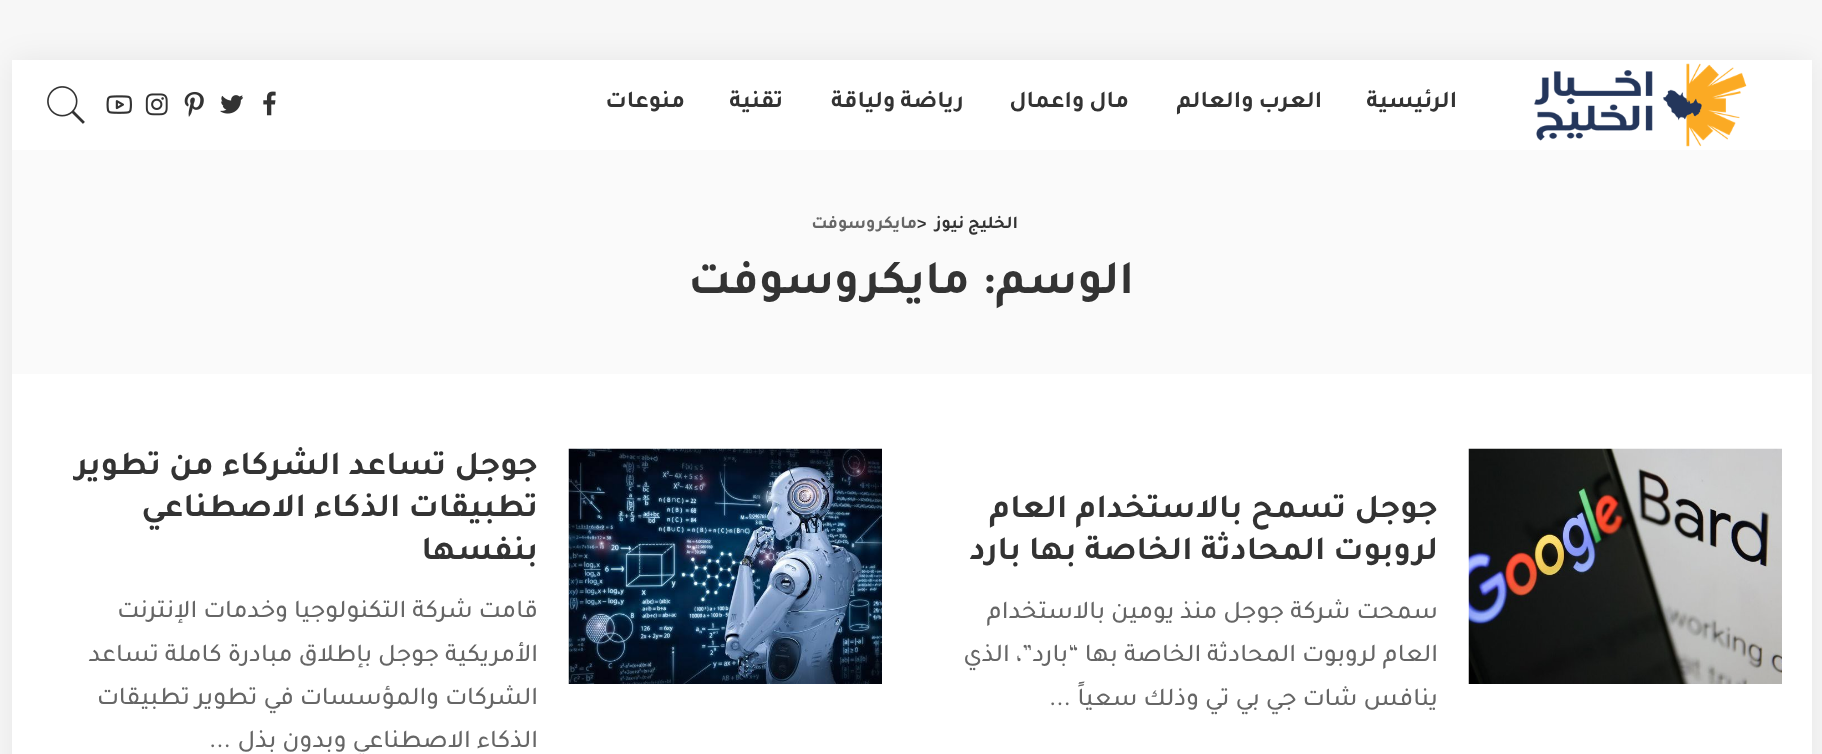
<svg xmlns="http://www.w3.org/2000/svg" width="1822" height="754">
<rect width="100%" height="100%" fill="#f7f7f7"/>
<rect x="12" y="60" width="1800" height="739" fill="#00000012" filter="blur(15px)"/>
<rect x="12" y="60" width="1800" height="694" fill="#fff"/>
<image x="1534" y="63" width="213" height="84" href="media/1.png"/>
<text x="1457" y="107" style="font-family:Tajawal;font-size:24px;font-weight:bold;letter-spacing:0.5px;direction:rtl;fill:#333">الرئيسية</text>
<text x="1322" y="107" word-spacing="-1" style="font-family:Tajawal;font-size:24px;font-weight:bold;letter-spacing:0.5px;direction:rtl;fill:#333">العرب والعالم</text>
<text x="1129" y="107" word-spacing="-1" style="font-family:Tajawal;font-size:24px;font-weight:bold;letter-spacing:0.5px;direction:rtl;fill:#333">مال واعمال</text>
<text x="964" y="107" word-spacing="-1" style="font-family:Tajawal;font-size:24px;font-weight:bold;letter-spacing:0.5px;direction:rtl;fill:#333">رياضة ولياقة</text>
<text x="783" y="107" style="font-family:Tajawal;font-size:24px;font-weight:bold;letter-spacing:0.5px;direction:rtl;fill:#333">تقنية</text>
<text x="685" y="107" style="font-family:Tajawal;font-size:24px;font-weight:bold;letter-spacing:0.5px;direction:rtl;fill:#333">منوعات</text>
<image x="263" y="91" width="13" height="25" href="media/2.png"/>
<image x="220" y="95" width="24" height="19" href="media/3.png"/>
<image x="184" y="91" width="20" height="26" href="media/4.png"/>
<image x="145" y="93" width="23" height="23" href="media/5.png"/>
<image x="106" y="95" width="26" height="19" href="media/6.png"/>
<image x="47" y="86" width="38" height="38" href="media/7.png"/>
<rect x="12" y="150" width="1800" height="224" fill="#fafafa"/>
<text x="1018" y="228" word-spacing="-1" style="font-family:Tajawal;font-size:18px;font-weight:bold;letter-spacing:0.5px;direction:rtl;fill:#333">الخليج نيوز</text>
<text x="917" y="228" style="font-family:Tajawal;font-size:18px;font-weight:bold;letter-spacing:0.5px;fill:#333">&gt;</text>
<text x="917" y="228" style="font-family:Tajawal;font-size:18px;font-weight:bold;letter-spacing:0.5px;direction:rtl;fill:#666">مايكروسوفت</text>
<text x="1134" y="293" style="font-family:Tajawal;font-size:48px;font-weight:bold;direction:rtl;fill:#333">الوسم:</text>
<text x="970" y="293" style="font-family:Tajawal;font-size:48px;font-weight:bold;direction:rtl;fill:#333">مايكروسوفت</text>
<image x="1468" y="448" width="314" height="236" href="media/8.png"/>
<text x="1438" y="517" style="font-family:Tajawal;font-size:33.75px;font-weight:bold;direction:rtl;fill:#333">جوجل تسمح بالاستخدام العام</text>
<text x="1438" y="559" style="font-family:Tajawal;font-size:33.75px;font-weight:bold;direction:rtl;fill:#333">لروبوت المحادثة الخاصة بها بارد</text>
<text x="1438" y="618" style="font-family:Tajawal;font-size:25.5px;font-weight:500;direction:rtl;fill:#666">سمحت شركة جوجل منذ يومين بالاستخدام</text>
<text x="1438" y="661" style="font-family:Tajawal;font-size:25.5px;font-weight:500;direction:rtl;fill:#666">العام لروبوت المحادثة الخاصة بها “بارد”، الذي</text>
<text x="1438" y="705" style="font-family:Tajawal;font-size:25.5px;font-weight:500;direction:rtl;fill:#666">ينافس شات جي بي تي وذلك سعياً</text>
<text x="1049" y="705" style="font-family:Tajawal;font-size:25.5px;font-weight:500;fill:#666">...</text>
<image x="568" y="448" width="314" height="236" href="media/9.png"/>
<text x="538" y="474" style="font-family:Tajawal;font-size:33.75px;font-weight:bold;direction:rtl;fill:#333">جوجل تساعد الشركاء من تطوير</text>
<text x="538" y="516" style="font-family:Tajawal;font-size:33.75px;font-weight:bold;direction:rtl;fill:#333">تطبيقات الذكاء الاصطناعي</text>
<text x="538" y="559" style="font-family:Tajawal;font-size:33.75px;font-weight:bold;direction:rtl;fill:#333">بنفسها</text>
<text x="538" y="617" style="font-family:Tajawal;font-size:25.5px;font-weight:500;direction:rtl;fill:#666">قامت شركة التكنولوجيا وخدمات الإنترنت</text>
<text x="538" y="661" style="font-family:Tajawal;font-size:25.5px;font-weight:500;direction:rtl;fill:#666">الأمريكية جوجل بإطلاق مبادرة كاملة تساعد</text>
<text x="538" y="704" style="font-family:Tajawal;font-size:25.5px;font-weight:500;direction:rtl;fill:#666">الشركات والمؤسسات في تطوير تطبيقات</text>
<text x="538" y="747" style="font-family:Tajawal;font-size:25.5px;font-weight:500;direction:rtl;fill:#666">الذكاء الاصطناعي وبدون بذل</text>
<text x="209" y="747" style="font-family:Tajawal;font-size:25.5px;font-weight:500;fill:#666">...</text>
</svg>
